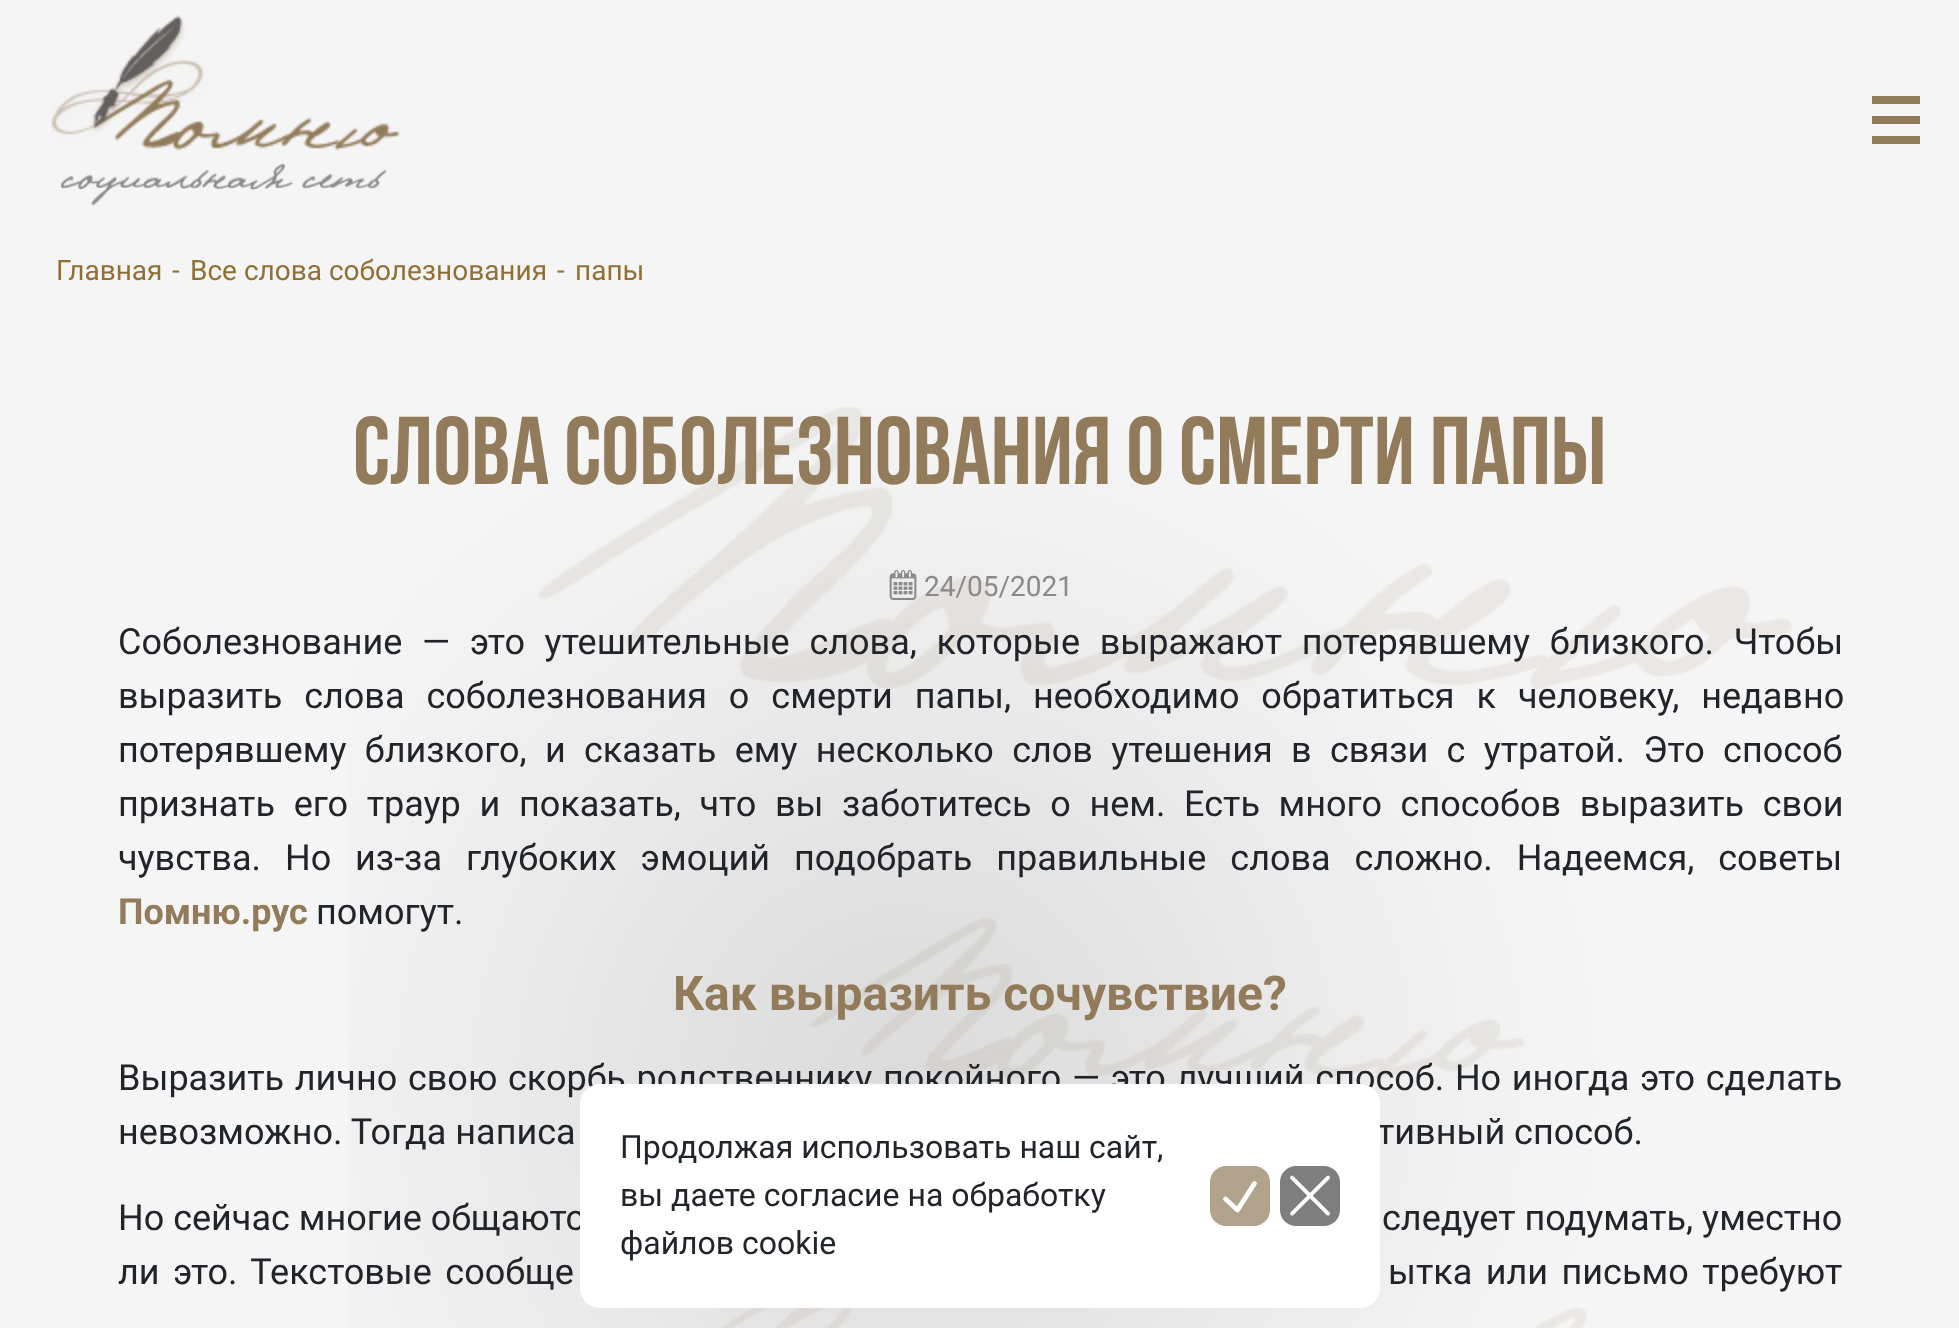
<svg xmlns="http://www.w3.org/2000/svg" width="1959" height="1328">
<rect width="100%" height="100%" fill="#f5f5f5"/>
<image x="51" y="15" width="350" height="136" href="media/1.png"/>
<image x="60" y="163" width="327" height="43" href="media/2.png"/>
<rect x="1872" y="96" width="48" height="8" fill="#917b5a"/>
<rect x="1872" y="116" width="48" height="8" fill="#917b5a"/>
<rect x="1872" y="136" width="48" height="8" fill="#917b5a"/>
<text x="56" y="280" style="font-family:Roboto;font-size:28px;fill:#926f34">Главная</text>
<text x="172" y="280" style="font-family:Roboto;font-size:28px;fill:#926f34">-</text>
<text x="190" y="280" style="font-family:Roboto;font-size:28px;fill:#926f34">Все слова соболезнования</text>
<text x="557" y="280" style="font-family:Roboto;font-size:28px;fill:#926f34">-</text>
<text x="575" y="280" style="font-family:Roboto;font-size:28px;fill:#926f34">папы</text>
<image x="348" y="406" width="1444" height="922" href="media/3.png"/>
<text x="353" y="484" style="font-family:Bebas Neue;font-size:96px;font-weight:bold;fill:#917b5a">Cлова соболезнования о смерти папы</text>
<image x="889" y="570" width="28" height="30" href="media/4.png"/>
<text x="924" y="596" style="font-family:Roboto;font-size:28px;fill:#8a8a8a">24/05/2021</text>
<text x="118" y="654" word-spacing="10.75" style="font-family:Roboto;font-size:36px;fill:#212529">Соболезнование — это утешительные слова, которые выражают потерявшему близкого. Чтобы</text>
<text x="118" y="708" word-spacing="13" style="font-family:Roboto;font-size:36px;fill:#212529">выразить слова соболезнования о смерти папы, необходимо обратиться к человеку, недавно</text>
<text x="118" y="762" word-spacing="9.4" style="font-family:Roboto;font-size:36px;fill:#212529">потерявшему близкого, и сказать ему несколько слов утешения в связи с утратой. Это способ</text>
<text x="118" y="816" word-spacing="9.75" style="font-family:Roboto;font-size:36px;fill:#212529">признать его траур и показать, что вы заботитесь о нем. Есть много способов выразить свои</text>
<text x="118" y="870" word-spacing="15" style="font-family:Roboto;font-size:36px;fill:#212529">чувства. Но из-за глубоких эмоций подобрать правильные слова сложно. Надеемся, советы</text>
<text x="118" y="924" style="font-family:Roboto;font-size:36px;font-weight:bold;fill:#917b5a">Помню.рус</text>
<text x="316" y="924" style="font-family:Roboto;font-size:36px;fill:#212529">помогут.</text>
<text x="673" y="1010" style="font-family:Roboto;font-size:48px;font-weight:bold;fill:#917b5a">Как выразить сочувствие?</text>
<text x="118" y="1090" word-spacing="1.75" style="font-family:Roboto;font-size:36px;fill:#212529">Выразить лично свою скорбь родственнику покойного — это лучший способ. Но иногда это сделать</text>
<text x="118" y="1144" style="font-family:Roboto;font-size:36px;fill:#212529">невозможно. Тогда написа</text>
<text x="1377" y="1144" style="font-family:Roboto;font-size:36px;fill:#212529">тивный способ.</text>
<text x="118" y="1230" style="font-family:Roboto;font-size:36px;fill:#212529">Но сейчас многие общаютс</text>
<text x="1382" y="1230" style="font-family:Roboto;font-size:36px;fill:#212529">следует подумать, уместно</text>
<text x="118" y="1284" word-spacing="4.5" style="font-family:Roboto;font-size:36px;fill:#212529">ли это. Текстовые сообще</text>
<text x="1388" y="1284" word-spacing="4.5" style="font-family:Roboto;font-size:36px;fill:#212529">ытка или письмо требуют</text>
<rect x="580" y="1084" width="800" height="224" rx="20" fill="#fff"/>
<text x="620" y="1158" style="font-family:Roboto;font-size:32px;fill:#212529">Продолжая использовать наш сайт,</text>
<text x="620" y="1206" style="font-family:Roboto;font-size:32px;fill:#212529">вы даете согласие на обработку</text>
<text x="620" y="1254" style="font-family:Roboto;font-size:32px;fill:#212529">файлов cookie</text>
<rect x="1210" y="1166" width="60" height="60" rx="16" fill="#b1a28c"/>
<path d="M1225.5 1199l12 11l17-26.5" fill="none" stroke="#fff" stroke-width="4.8" stroke-linecap="round" stroke-linejoin="round"/>
<rect x="1280" y="1166" width="60" height="60" rx="16" fill="#7e7e7e"/>
<image x="1290" y="1175" width="40" height="41" href="media/5.png"/>
</svg>
